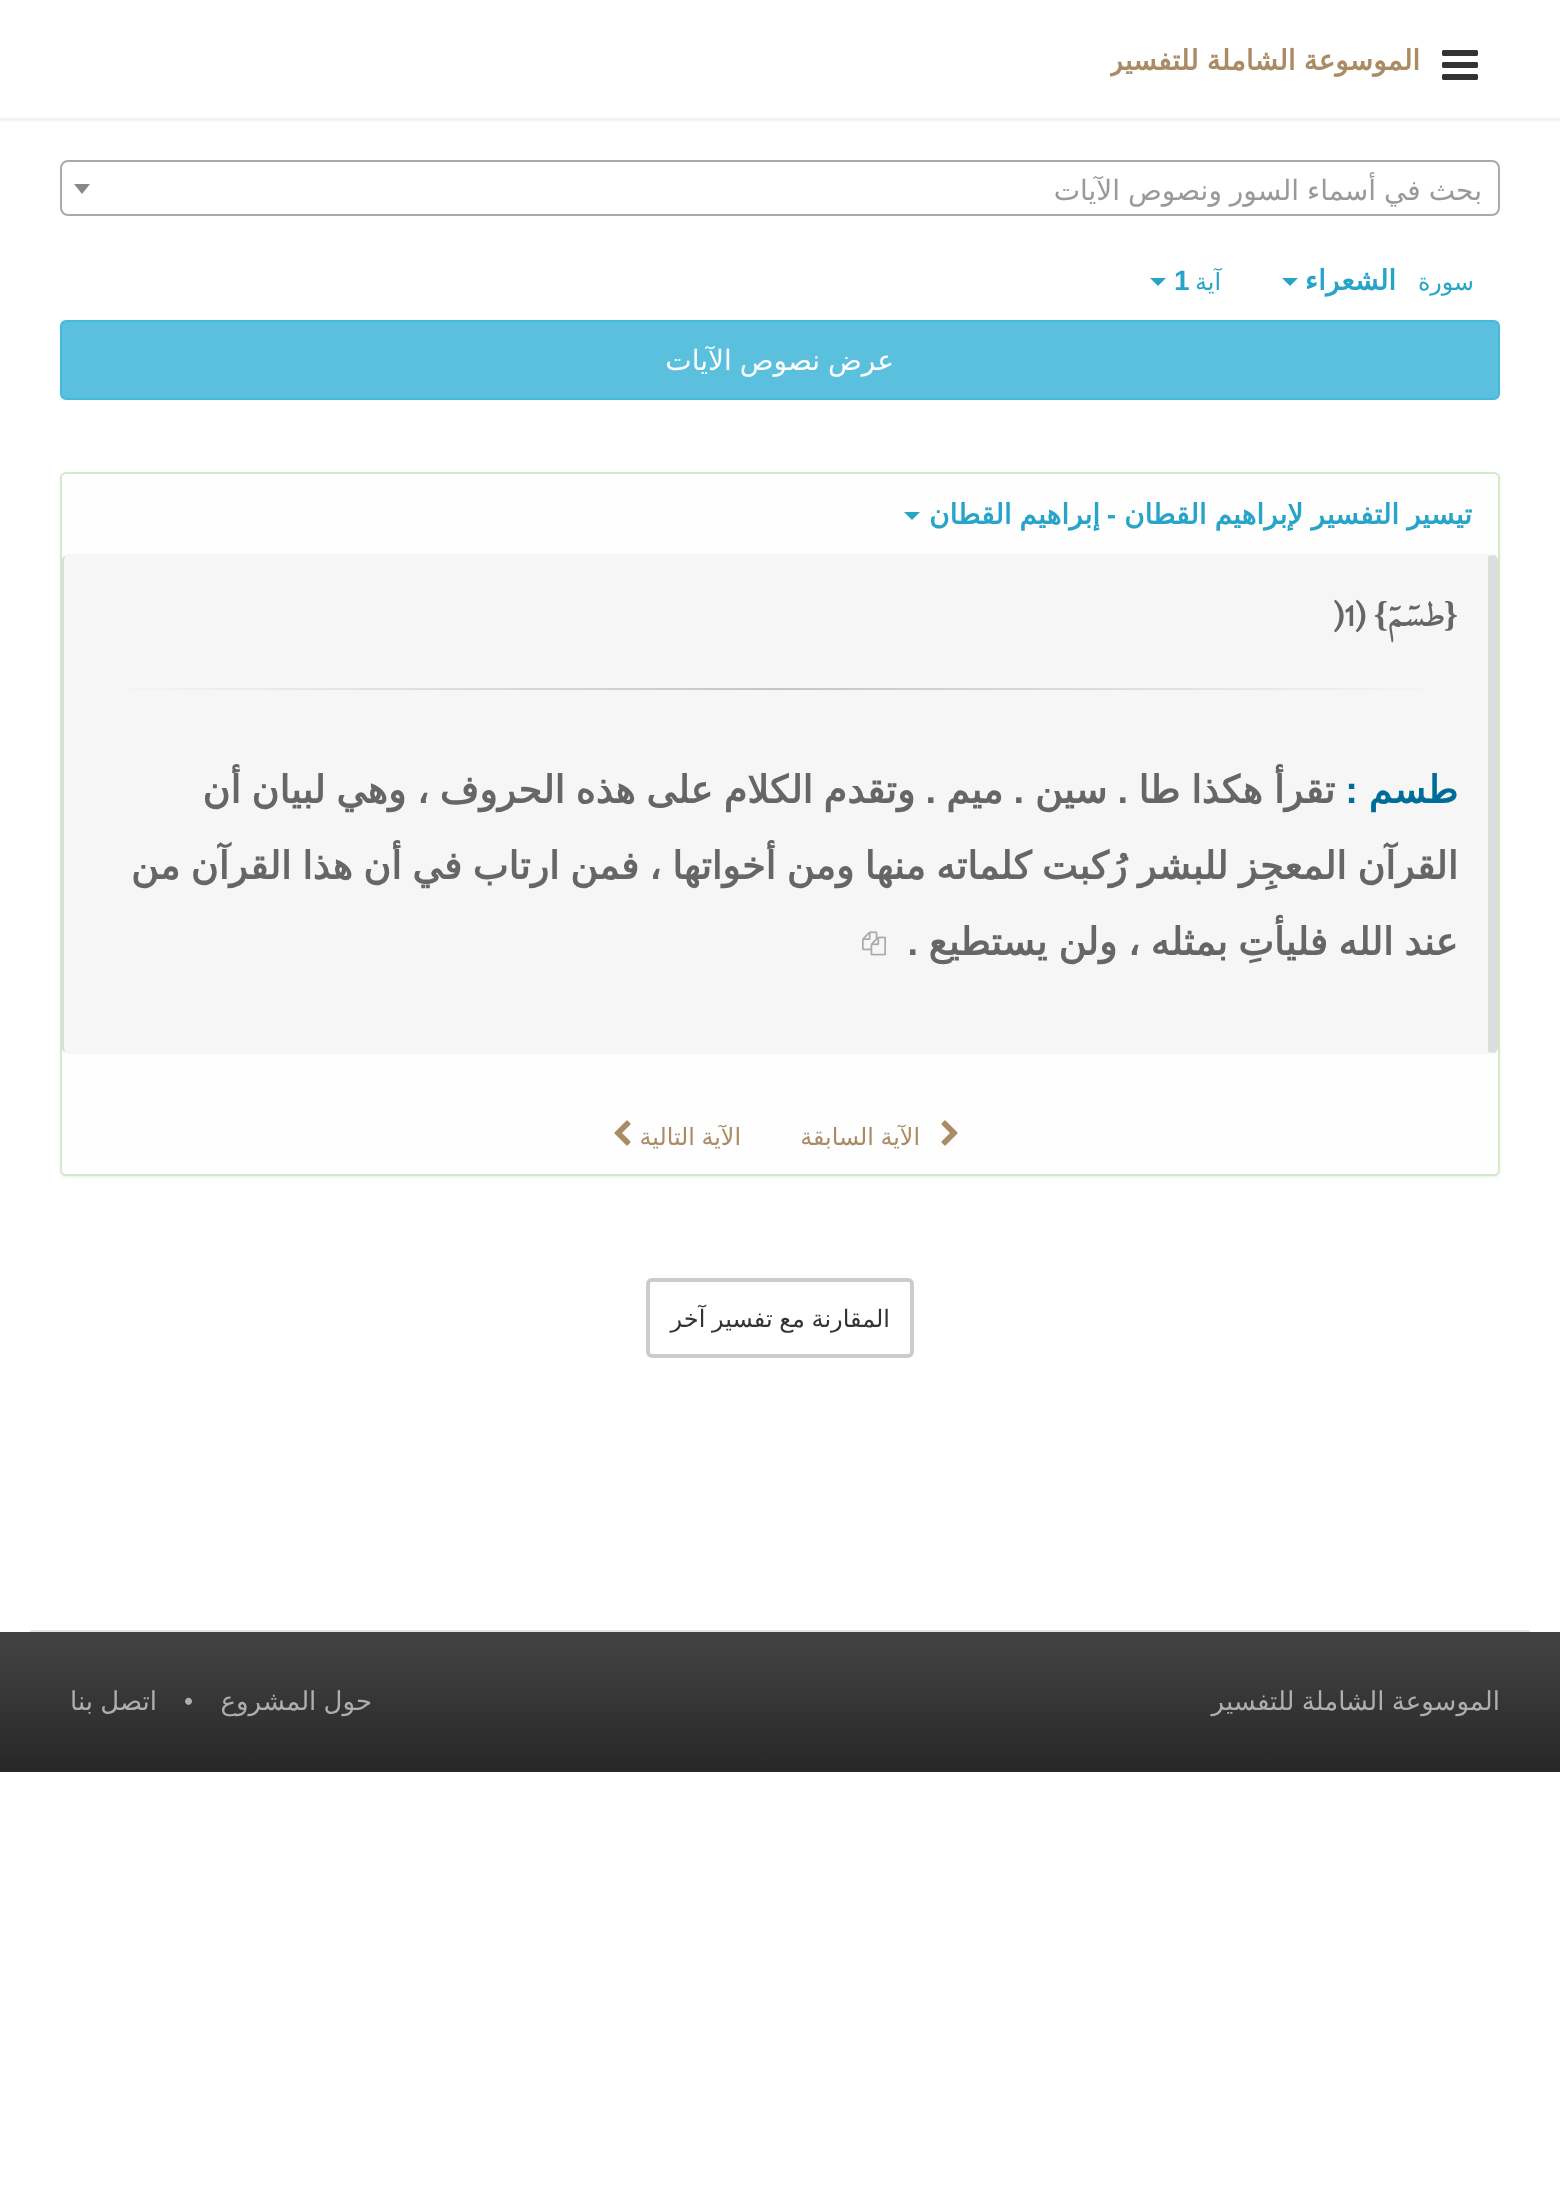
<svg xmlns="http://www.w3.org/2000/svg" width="1560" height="2198">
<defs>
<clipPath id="clip1"><rect x="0" y="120" width="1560" height="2"/></clipPath>
<clipPath id="clip2"><rect x="1110" width="310" height="120"/></clipPath>
<linearGradient id="g1" gradientUnits="userSpaceOnUse" x1="94" y1="689" x2="1458" y2="689"><stop offset="0" stop-color="#f6f6f6"/><stop offset="0.5" stop-color="#c5c5c5"/><stop offset="1" stop-color="#f6f6f6"/></linearGradient>
<linearGradient id="g2" gradientUnits="userSpaceOnUse" x1="780" y1="1632" x2="780" y2="1772"><stop offset="0" stop-color="#444"/><stop offset="1" stop-color="#272727"/></linearGradient>
</defs>
<rect width="100%" height="100%" fill="#fff"/>
<g clip-path="url(#clip1)">
<rect width="1560" height="120" fill="#0000001a" filter="blur(2px)"/>
</g>
<rect y="118" width="1560" height="2" fill="#f2f2f2"/>
<image x="1442" y="50" width="36" height="30" href="media/1.png"/>
<g clip-path="url(#clip2)">
<text x="1420" y="70" word-spacing="-1" style="font-family:DejaVu Sans;font-size:28px;font-weight:bold;direction:rtl;fill:#ab8b64">الموسوعة الشاملة للتفسير</text>
</g>
<rect x="30" y="1630" width="1500" height="2" fill="#e6e6e6"/>
<rect x="61" y="161" width="1438" height="54" rx="7" fill="none" stroke="#aaa" stroke-width="2"/>
<text x="1482" y="200" word-spacing="-1" style="font-family:DejaVu Sans;font-size:28px;direction:rtl;fill:#999">بحث في أسماء السور ونصوص الآيات</text>
<path d="M74 184h16l-8 10z" fill="#888"/>
<text x="1474" y="290" style="font-family:DejaVu Sans;font-size:23.75px;direction:rtl;fill:#28a4c9">سورة</text>
<text x="1396" y="290" style="font-family:DejaVu Sans;font-size:28px;font-weight:bold;direction:rtl;fill:#28a4c9">الشعراء</text>
<path d="M1282 278h16l-8 8z" fill="#28a4c9"/>
<text x="1221" y="290" style="font-family:DejaVu Sans;font-size:23.75px;direction:rtl;fill:#28a4c9">آية</text>
<text x="1174" y="290" style="font-family:Liberation Sans;font-size:28px;font-weight:bold;fill:#28a4c9">1</text>
<path d="M1150 278h16l-8 8z" fill="#28a4c9"/>
<rect x="61" y="321" width="1438" height="78" rx="5" fill="#5bc0de" stroke="#46b8da" stroke-width="2"/>
<text x="894" y="370" word-spacing="-1" style="font-family:DejaVu Sans;font-size:28px;direction:rtl;fill:#fff">عرض نصوص الآيات</text>
<rect x="60" y="474" width="1440" height="704" rx="6" fill="#0000000d" filter="blur(1px)"/>
<rect x="61" y="473" width="1438" height="702" rx="5" fill="#fefefe" stroke="#d6e9c6" stroke-width="2"/>
<text x="1472" y="524" word-spacing="-1" style="font-family:DejaVu Sans;font-size:28px;font-weight:bold;direction:rtl;fill:#28a4c9">تيسير التفسير لإبراهيم القطان</text>
<text x="1116" y="524" style="font-family:Liberation Sans;font-size:28px;font-weight:bold;direction:rtl;fill:#28a4c9">-</text>
<text x="1100" y="524" word-spacing="-1" style="font-family:DejaVu Sans;font-size:28px;font-weight:bold;direction:rtl;fill:#28a4c9">إبراهيم القطان</text>
<path d="M904 512h16l-8 8z" fill="#28a4c9"/>
<rect x="62" y="554" width="1436" height="500" rx="6" fill="#f6f6f6"/>
<path d="M1498 1048v-488c0-2-2-4-3-5l-7 1v496l7 1c1-1 3-3 3-5z" fill="#ddd"/>
<path d="M62 560v488c0 2 1 3 2 4l1-1l-1-3v-488l1-3l-1-1c-1 1-2 2-2 4z" fill="#ddd"/>
<text x="1458" y="626" style="font-family:Liberation Serif;font-size:36px;font-weight:bold;direction:rtl;fill:#666">{</text>
<text x="1444" y="626" style="font-family:'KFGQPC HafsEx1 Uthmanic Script';font-size:36px;font-weight:bold;direction:rtl;fill:#666">طسٓمٓ</text>
<text x="1388" y="626" style="font-family:Liberation Serif;font-size:36px;font-weight:bold;direction:rtl;fill:#666">}</text>
<text x="1366" y="626" style="font-family:'KFGQPC HafsEx1 Uthmanic Script';font-size:36px;font-weight:bold;direction:rtl;fill:#666">(</text>
<text x="1332" y="626" style="font-family:'KFGQPC HafsEx1 Uthmanic Script';font-size:36px;font-weight:bold;fill:#666">)1</text>
<rect x="129" y="688" width="1294" height="2" fill="url(#g1)"/>
<text x="1458" y="803" style="font-family:DejaVu Sans;font-size:38px;font-weight:bold;direction:rtl;fill:#006d98">طسم</text>
<text x="1358" y="803" style="font-family:Liberation Sans;font-size:38px;font-weight:bold;direction:rtl;fill:#006d98">:</text>
<text x="1335" y="803" word-spacing="-1" style="font-family:DejaVu Sans;font-size:38px;font-weight:bold;direction:rtl;fill:#666">تقرأ هكذا طا</text>
<text x="1128" y="803" style="font-family:Liberation Sans;font-size:38px;font-weight:bold;direction:rtl;fill:#666">.</text>
<text x="1107" y="803" style="font-family:DejaVu Sans;font-size:38px;font-weight:bold;direction:rtl;fill:#666">سين</text>
<text x="1024" y="803" style="font-family:Liberation Sans;font-size:38px;font-weight:bold;direction:rtl;fill:#666">.</text>
<text x="1003" y="803" style="font-family:DejaVu Sans;font-size:38px;font-weight:bold;direction:rtl;fill:#666">ميم</text>
<text x="936" y="803" style="font-family:Liberation Sans;font-size:38px;font-weight:bold;direction:rtl;fill:#666">.</text>
<text x="915" y="803" word-spacing="-1.5" style="font-family:DejaVu Sans;font-size:38px;font-weight:bold;direction:rtl;fill:#666">وتقدم الكلام على هذه الحروف ،</text>
<text x="406" y="803" word-spacing="-1.5" style="font-family:DejaVu Sans;font-size:38px;font-weight:bold;direction:rtl;fill:#666">وهي لبيان أن</text>
<text x="1458" y="879" word-spacing="-1.5" style="font-family:DejaVu Sans;font-size:38px;font-weight:bold;direction:rtl;fill:#666">القرآن المعجِز للبشر رُكبت كلماته منها ومن أخواتها ،</text>
<text x="639" y="879" word-spacing="-1.5" style="font-family:DejaVu Sans;font-size:38px;font-weight:bold;direction:rtl;fill:#666">فمن ارتاب في أن هذا القرآن من</text>
<text x="1458" y="955" word-spacing="-1.5" style="font-family:DejaVu Sans;font-size:38px;font-weight:bold;direction:rtl;fill:#666">عند الله فليأتِ بمثله ،</text>
<text x="1117" y="955" word-spacing="-1" style="font-family:DejaVu Sans;font-size:38px;font-weight:bold;direction:rtl;fill:#666">ولن يستطيع</text>
<text x="918" y="955" style="font-family:Liberation Sans;font-size:38px;font-weight:bold;direction:rtl;fill:#666">.</text>
<image x="862" y="931" width="24" height="25" href="media/2.png"/>
<image x="941" y="1120" width="17" height="26" href="media/3.png"/>
<text x="920" y="1145" word-spacing="-1" style="font-family:DejaVu Sans;font-size:23.75px;direction:rtl;fill:#ab8b64">الآية السابقة</text>
<text x="741" y="1145" word-spacing="-1" style="font-family:DejaVu Sans;font-size:23.75px;direction:rtl;fill:#ab8b64">الآية التالية</text>
<image x="614" y="1120" width="17" height="26" href="media/4.png"/>
<rect x="648" y="1280" width="264" height="76" rx="4" fill="none" stroke="#ccc" stroke-width="4"/>
<text x="890" y="1327" word-spacing="-1" style="font-family:DejaVu Sans;font-size:24px;direction:rtl;fill:#333">المقارنة مع تفسير آخر</text>
<rect y="1632" width="1560" height="140" fill="url(#g2)"/>
<text x="1500" y="1710" word-spacing="-1" style="font-family:DejaVu Sans;font-size:26px;direction:rtl;fill:#aeaeae">الموسوعة الشاملة للتفسير</text>
<text x="372" y="1710" word-spacing="-1" style="font-family:DejaVu Sans;font-size:26px;direction:rtl;fill:#aeaeae">حول المشروع</text>
<text x="184" y="1710" style="font-family:Liberation Sans;font-size:26px;fill:#aeaeae">•</text>
<text x="157" y="1710" word-spacing="-1" style="font-family:DejaVu Sans;font-size:26px;direction:rtl;fill:#aeaeae">اتصل بنا</text>
</svg>
